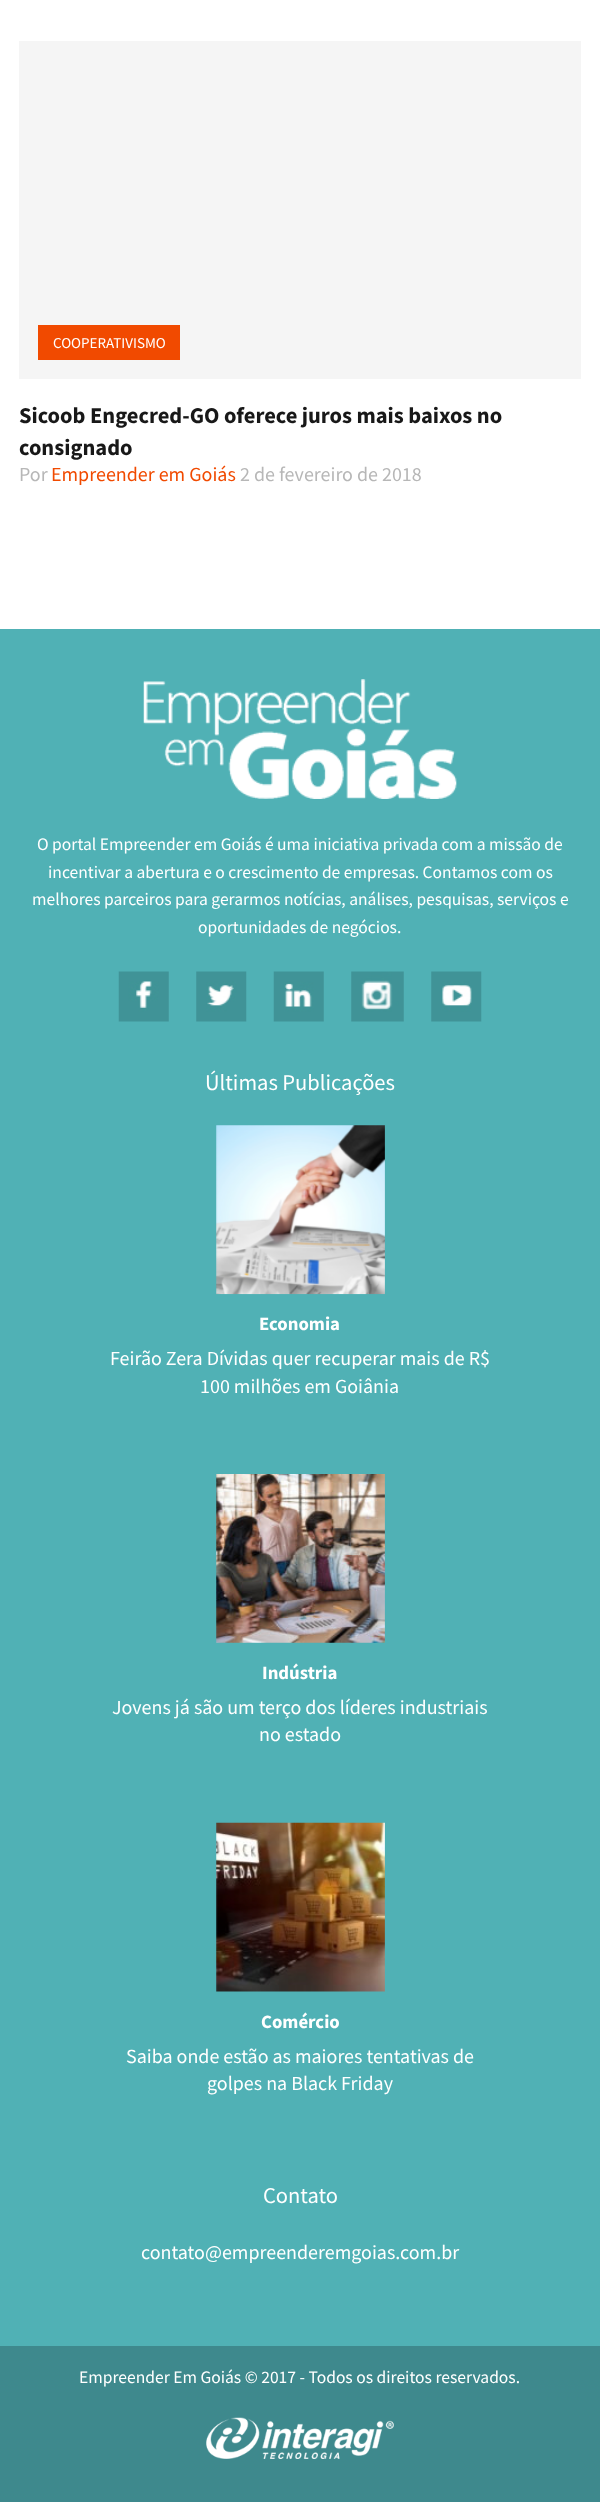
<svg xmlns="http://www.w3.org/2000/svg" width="600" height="2502">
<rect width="100%" height="100%" fill="#fff"/>
<rect x="19" y="41" width="562" height="338" fill="#f5f5f5"/>
<rect x="38" y="325" width="142" height="35" fill="#f14a00"/>
<text x="53" y="348" style="font-family:Source Sans Pro;font-size:15px;fill:#fff">COOPERATIVISMO</text>
<text x="19" y="423" style="font-family:Source Sans Pro;font-size:22.5px;font-weight:bold;fill:#181818">Sicoob Engecred-GO oferece juros mais baixos no</text>
<text x="19" y="455" style="font-family:Source Sans Pro;font-size:22.5px;font-weight:bold;fill:#181818">consignado</text>
<text x="19" y="481" style="font-family:Source Sans Pro;font-size:20px;fill:#b7b7b7">Por</text>
<text x="51" y="481" style="font-family:Source Sans Pro;font-size:20px;fill:#f14a00">Empreender em Goiás</text>
<text x="240" y="481" style="font-family:Source Sans Pro;font-size:20px;fill:#b7b7b7">2 de fevereiro de 2018</text>
<rect y="629" width="600" height="1717" fill="#50b1b5"/>
<image x="143" y="679" width="314" height="120" href="media/1.png"/>
<text x="37" y="850" style="font-family:Source Sans Pro;font-size:17.5px;fill:#fff">O portal Empreender em Goiás é uma iniciativa privada com a missão de</text>
<text x="48" y="878" style="font-family:Source Sans Pro;font-size:17.5px;fill:#fff">incentivar a abertura e o crescimento de empresas. Contamos com os</text>
<text x="32" y="905" style="font-family:Source Sans Pro;font-size:17.5px;fill:#fff">melhores parceiros para gerarmos notícias, análises, pesquisas, serviços e</text>
<text x="198" y="933" style="font-family:Source Sans Pro;font-size:17.5px;fill:#fff">oportunidades de negócios.</text>
<image x="118" y="971" width="51" height="51" href="media/2.png"/>
<image x="196" y="971" width="51" height="51" href="media/3.png"/>
<image x="273" y="971" width="51" height="51" href="media/4.png"/>
<image x="351" y="971" width="53" height="51" href="media/5.png"/>
<image x="431" y="971" width="51" height="51" href="media/6.png"/>
<text x="205" y="1090" style="font-family:Source Sans Pro;font-size:22.5px;fill:#fff">Últimas Publicações</text>
<image x="216" y="1125" width="169" height="170" href="media/7.png"/>
<text x="259" y="1330" style="font-family:Source Sans Pro;font-size:18.75px;font-weight:bold;fill:#fff">Economia</text>
<text x="110" y="1365" style="font-family:Source Sans Pro;font-size:20px;fill:#fff">Feirão Zera Dívidas quer recuperar mais de R$</text>
<text x="200" y="1393" style="font-family:Source Sans Pro;font-size:20px;fill:#fff">100 milhões em Goiânia</text>
<image x="216" y="1474" width="169" height="169" href="media/8.png"/>
<text x="262" y="1679" style="font-family:Source Sans Pro;font-size:18.75px;font-weight:bold;fill:#fff">Indústria</text>
<text x="112" y="1714" style="font-family:Source Sans Pro;font-size:20px;fill:#fff">Jovens já são um terço dos líderes industriais</text>
<text x="259" y="1741" style="font-family:Source Sans Pro;font-size:20px;fill:#fff">no estado</text>
<image x="216" y="1822" width="169" height="170" href="media/9.png"/>
<text x="261" y="2028" style="font-family:Source Sans Pro;font-size:18.75px;font-weight:bold;fill:#fff">Comércio</text>
<text x="126" y="2063" style="font-family:Source Sans Pro;font-size:20px;fill:#fff">Saiba onde estão as maiores tentativas de</text>
<text x="207" y="2090" style="font-family:Source Sans Pro;font-size:20px;fill:#fff">golpes na Black Friday</text>
<text x="263" y="2203" style="font-family:Source Sans Pro;font-size:22.5px;fill:#fff">Contato</text>
<text x="141" y="2259" style="font-family:Source Sans Pro;font-size:20px;fill:#fff">contato@empreenderemgoias.com.br</text>
<rect y="2346" width="600" height="156" fill="#3e898d"/>
<text x="79" y="2383" style="font-family:Source Sans Pro;font-size:17.5px;fill:#fff">Empreender Em Goiás © 2017 - Todos os direitos reservados.</text>
<image x="206" y="2417" width="188" height="42" href="media/10.png"/>
</svg>
